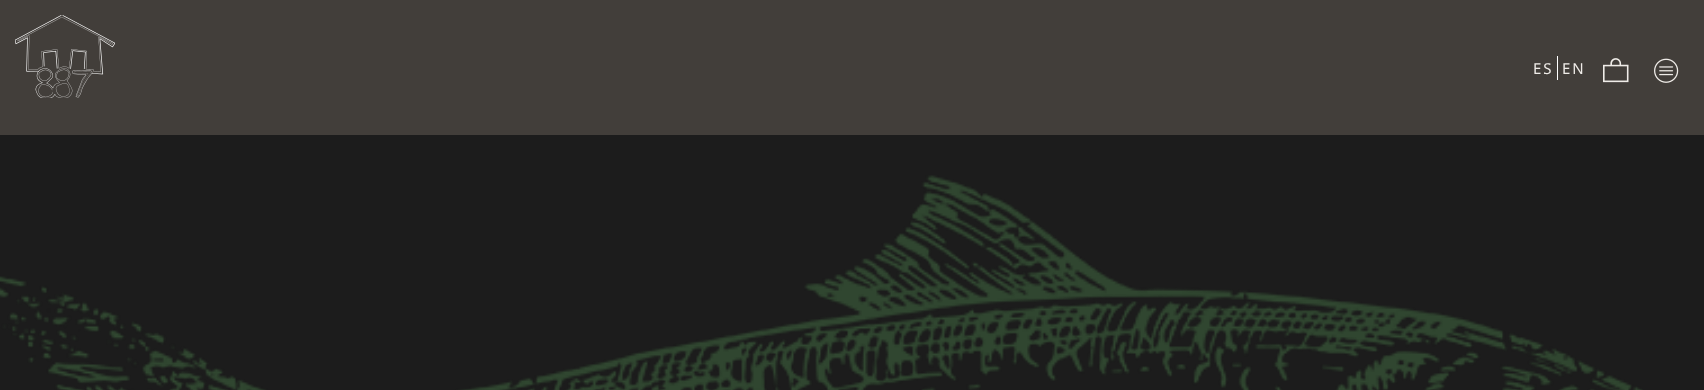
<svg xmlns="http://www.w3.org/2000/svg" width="1704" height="390">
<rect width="100%" height="100%" fill="#423e3a"/>
<image x="15" y="15" width="100" height="83" href="media/1.png"/>
<rect x="1557" y="56" width="1" height="24" fill="#fff"/>
<text x="1533" y="74" style="font-family:Noto Sans;font-size:15px;letter-spacing:2px;fill:#efece8">ES</text>
<text x="1562" y="74" style="font-family:Noto Sans;font-size:15px;letter-spacing:2px;fill:#efece8">EN</text>
<image x="1603" y="58" width="26" height="25" href="media/2.png"/>
<image x="1654" y="58" width="25" height="25" href="media/3.png"/>
<rect y="135" width="1704" height="255" fill="#1c1c1c"/>
<image x="0" y="175" width="1643" height="215" href="media/4.png"/>
</svg>
